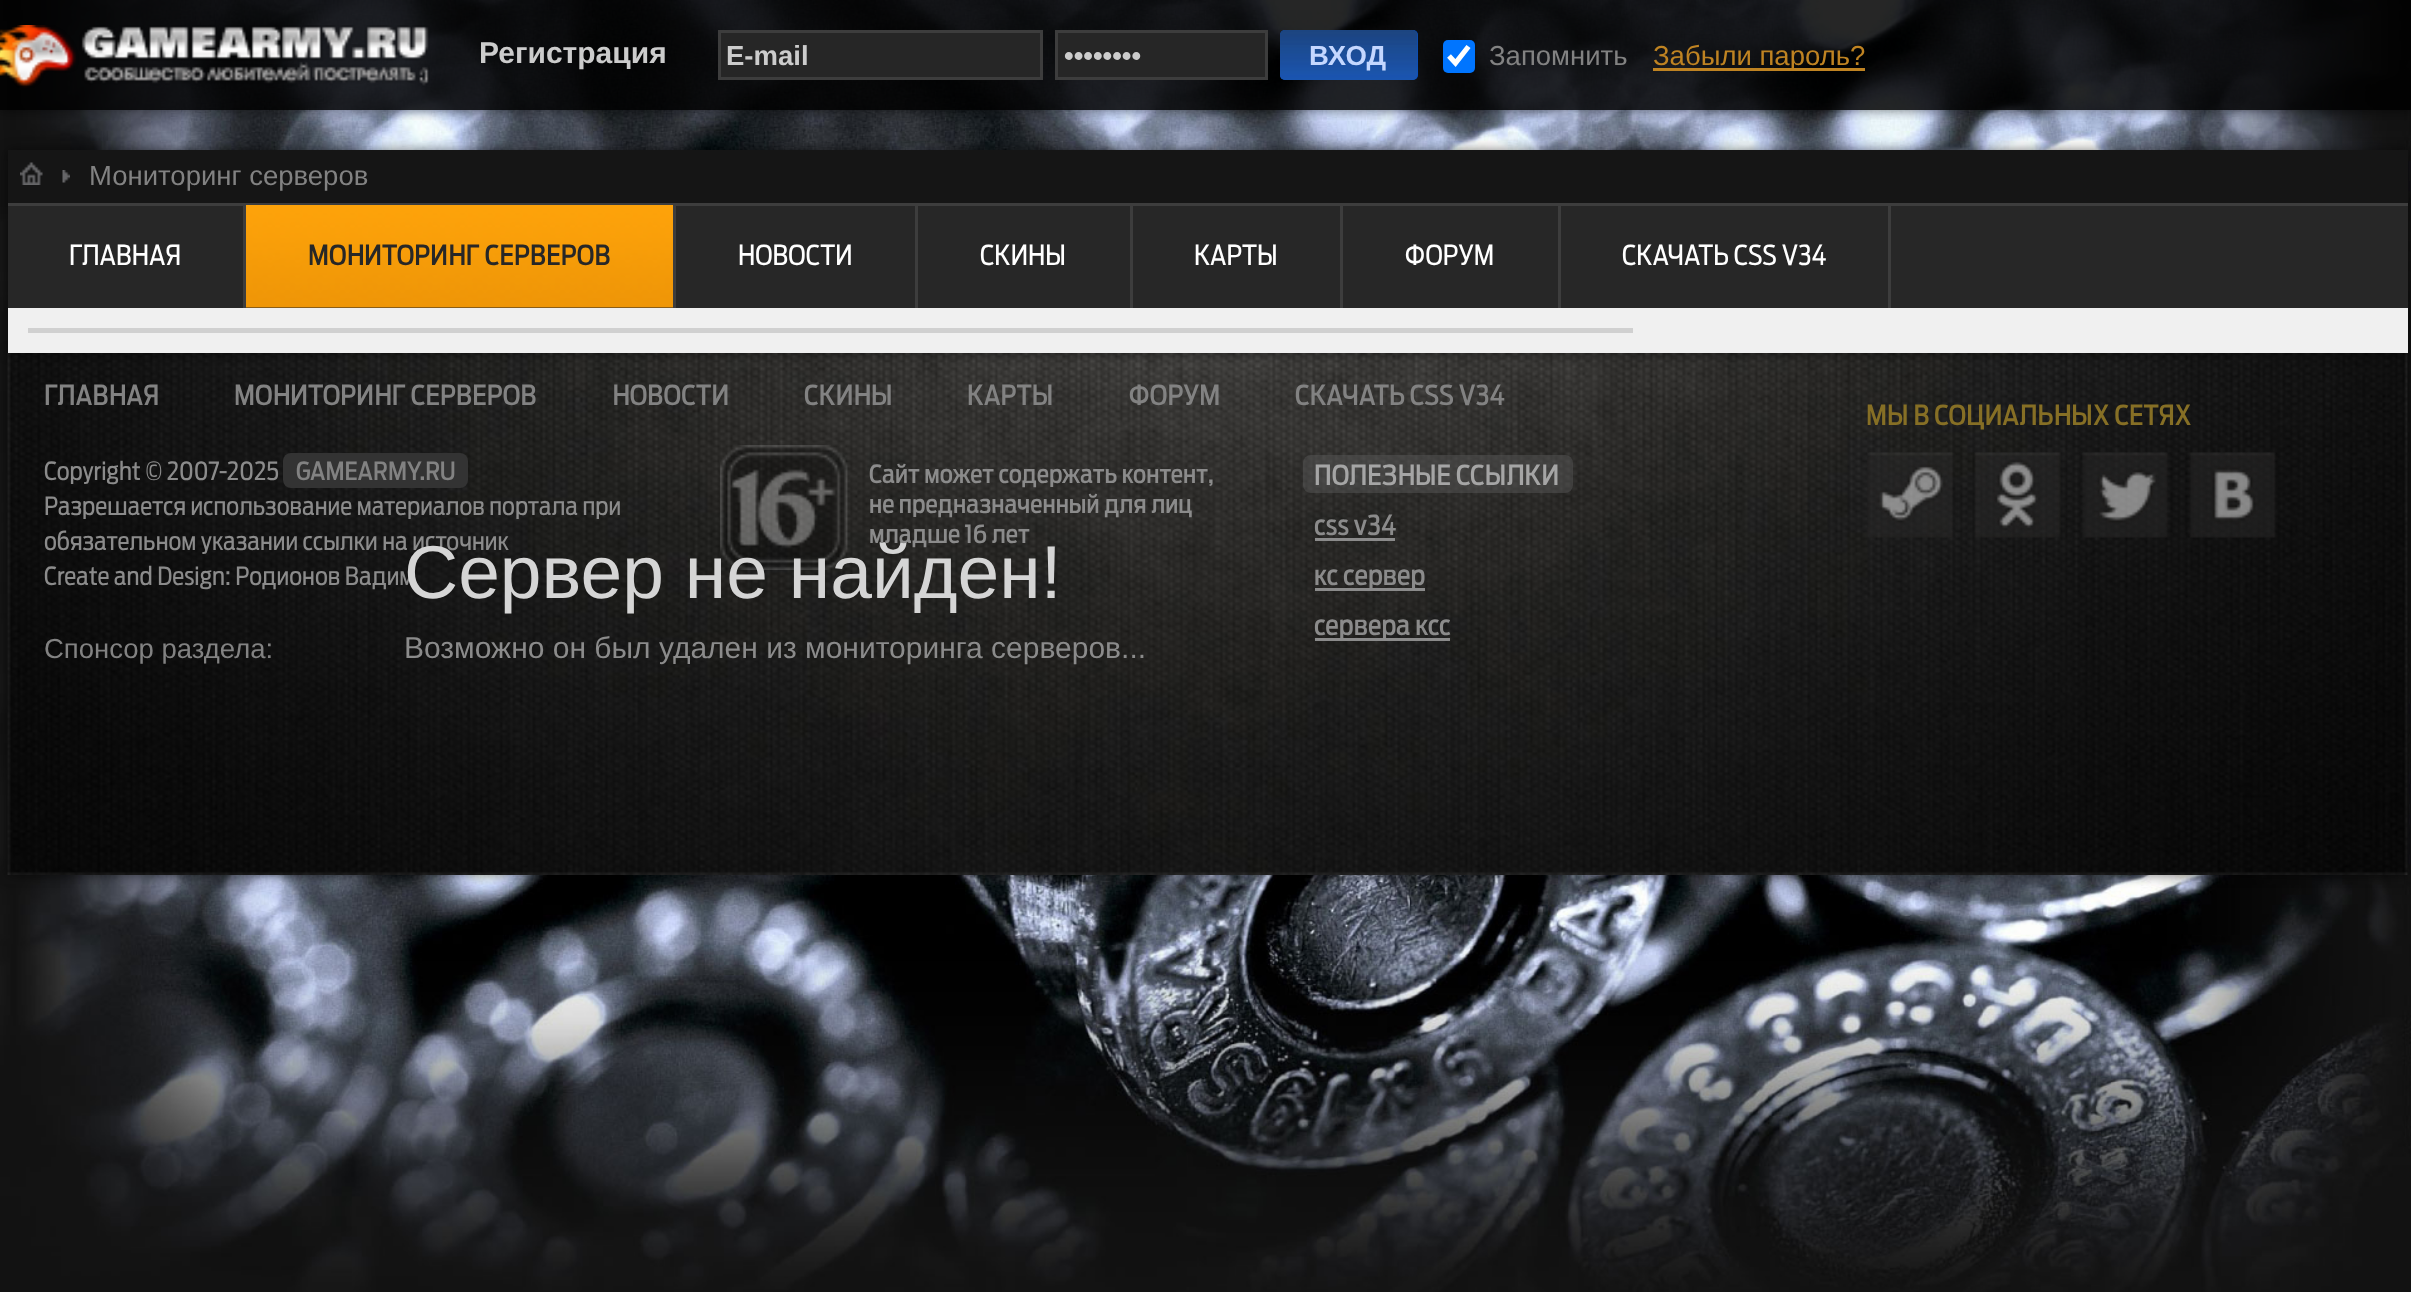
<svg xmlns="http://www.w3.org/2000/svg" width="2411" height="1292">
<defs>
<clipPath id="clip1"><rect x="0" y="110" width="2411" height="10"/></clipPath>
</defs>
<rect width="100%" height="100%" fill="#fff"/>
<image x="0" y="0" width="2411" height="1292" href="media/1.png"/>
<g clip-path="url(#clip1)">
<rect width="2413" height="110" fill="#00000080" filter="blur(6px)"/>
</g>
<rect width="2411" height="110" fill="#000000d9"/>
<image x="0" y="25" width="430" height="63" href="media/2.png"/>
<text x="479" y="63" style="font-family:Liberation Sans;font-size:30px;font-weight:bold;fill:#ccc">Регистрация</text>
<rect x="719.5" y="31.5" width="322" height="47" fill="#262626" stroke="#3d3d3d" stroke-width="3"/>
<text x="726" y="65" style="font-family:Liberation Sans;font-size:27.5px;font-weight:bold;fill:#ccc">E-mail</text>
<rect x="1056.5" y="31.5" width="210" height="47" fill="#262626" stroke="#3d3d3d" stroke-width="3"/>
<text x="1064" y="65" style="font-family:Liberation Sans;font-size:27.5px;font-weight:bold;fill:#ccc">••••••••</text>
<rect x="1280" y="30" width="138" height="50" rx="5" fill="#0053cf"/>
<image x="1280" y="30" width="138" height="50" href="media/3.png"/>
<text x="1309" y="65" style="font-family:Liberation Sans;font-size:27.5px;font-weight:bold;fill:#c4d7ff">ВХОД</text>
<rect x="1443" y="40" width="32" height="33" rx="5" fill="#0075ff"/>
<path d="M1449 56l6.5 7l13-16.5" fill="none" stroke="#fff" stroke-width="5.2"/>
<text x="1489" y="65" style="font-family:Liberation Sans;font-size:27.5px;fill:#828282">Запомнить</text>
<rect x="1653" y="68" width="212" height="3" fill="#bf8322"/>
<text x="1653" y="65" style="font-family:Liberation Sans;font-size:27.5px;fill:#bf8322">Забыли пароль?</text>
<rect x="8" y="353" width="2400" height="522" fill="#00000080" filter="blur(6px)"/>
<image x="7" y="352" width="2401" height="523" href="media/7.png"/>
<rect x="8" y="150" width="2400" height="203" fill="#00000080" filter="blur(6px)"/>
<rect x="8" y="308" width="2400" height="45" fill="#f0f0f0"/>
<rect x="8" y="150" width="2400" height="53" fill="#151515"/>
<image x="20" y="162" width="23" height="23" href="media/4.png"/>
<image x="62" y="170" width="8" height="13" href="media/5.png"/>
<text x="89" y="185" style="font-family:Liberation Sans;font-size:27.5px;fill:#828282">Мониторинг серверов</text>
<rect x="8" y="206" width="2400" height="102" fill="#272727"/>
<rect x="8" y="203" width="2400" height="3" fill="#3d3d3d"/>
<rect x="243" y="205" width="3" height="103" fill="#3d3d3d"/>
<text x="69" y="265" style="font-family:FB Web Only;font-size:27.5px;fill:#fff">ГЛАВНАЯ</text>
<image x="246" y="205" width="427" height="103" href="media/6.png"/>
<rect x="673" y="205" width="3" height="103" fill="#3d3d3d"/>
<text x="308" y="265" style="font-family:FB Web Only;font-size:27.5px;font-weight:500;fill:#272727">МОНИТОРИНГ СЕРВЕРОВ</text>
<rect x="915" y="205" width="3" height="103" fill="#3d3d3d"/>
<text x="738" y="265" style="font-family:FB Web Only;font-size:27.5px;fill:#fff">НОВОСТИ</text>
<rect x="1130" y="205" width="3" height="103" fill="#3d3d3d"/>
<text x="980" y="265" style="font-family:FB Web Only;font-size:27.5px;fill:#fff">СКИНЫ</text>
<rect x="1340" y="205" width="3" height="103" fill="#3d3d3d"/>
<text x="1194" y="265" style="font-family:FB Web Only;font-size:27.5px;fill:#fff">КАРТЫ</text>
<rect x="1558" y="205" width="3" height="103" fill="#3d3d3d"/>
<text x="1405" y="265" style="font-family:FB Web Only;font-size:27.5px;fill:#fff">ФОРУМ</text>
<rect x="1888" y="205" width="3" height="103" fill="#3d3d3d"/>
<text x="1622" y="265" style="font-family:FB Web Only;font-size:27.5px;fill:#fff">СКАЧАТЬ CSS V34</text>
<rect x="28" y="328" width="1605" height="5" fill="#d0d0d0"/>
<text x="44" y="550" style="font-family:FB Web Only;font-size:25px;fill:#8b8b8b">обязательном указании ссылки на источник</text>
<text x="44" y="585" style="font-family:FB Web Only;font-size:25px;fill:#8b8b8b">Create and Design: Родионов Вадим</text>
<image x="720" y="445" width="128" height="125" href="media/8.png"/>
<text x="404" y="598" style="font-family:Liberation Sans;font-size:75px;fill:#d5d5d5">Сервер не найден!</text>
<text x="404" y="658" style="font-family:Liberation Sans;font-size:30px;fill:#8b8b8b">Возможно он был удален из мониторинга серверов...</text>
<text x="44" y="405" style="font-family:FB Web Only;font-size:27.5px;font-weight:500;fill:#828282">ГЛАВНАЯ</text>
<text x="234" y="405" style="font-family:FB Web Only;font-size:27.5px;font-weight:500;fill:#828282">МОНИТОРИНГ СЕРВЕРОВ</text>
<text x="612" y="405" style="font-family:FB Web Only;font-size:27.5px;font-weight:500;fill:#828282">НОВОСТИ</text>
<text x="804" y="405" style="font-family:FB Web Only;font-size:27.5px;font-weight:500;fill:#828282">СКИНЫ</text>
<text x="967" y="405" style="font-family:FB Web Only;font-size:27.5px;font-weight:500;fill:#828282">КАРТЫ</text>
<text x="1129" y="405" style="font-family:FB Web Only;font-size:27.5px;font-weight:500;fill:#828282">ФОРУМ</text>
<text x="1295" y="405" style="font-family:FB Web Only;font-size:27.5px;font-weight:500;fill:#828282">СКАЧАТЬ CSS V34</text>
<text x="1866" y="425" style="font-family:FB Web Only;font-size:27.5px;font-weight:500;fill:#866f25">МЫ В СОЦИАЛЬНЫХ СЕТЯХ</text>
<text x="44" y="480" style="font-family:FB Web Only;font-size:25px;fill:#8b8b8b">Copyright © 2007-2025</text>
<rect x="283" y="453" width="185" height="35" rx="8" fill="#333"/>
<text x="296" y="480" style="font-family:FB Web Only;font-size:25px;font-weight:500;fill:#828282">GAMEARMY.RU</text>
<text x="44" y="515" style="font-family:FB Web Only;font-size:25px;fill:#8b8b8b">Разрешается использование материалов портала при</text>
<text x="869" y="483" style="font-family:FB Web Only;font-size:25px;font-weight:500;fill:#8b8b8b">Сайт может содержать контент,</text>
<text x="869" y="513" style="font-family:FB Web Only;font-size:25px;font-weight:500;fill:#8b8b8b">не предназначенный для лиц</text>
<text x="869" y="543" style="font-family:FB Web Only;font-size:25px;font-weight:500;fill:#8b8b8b">младше 16 лет</text>
<rect x="1303" y="455" width="270" height="38" rx="8" fill="#5f5f5f6b"/>
<text x="1314" y="485" style="font-family:FB Web Only;font-size:27.5px;font-weight:500;fill:#a5a5a5">ПОЛЕЗНЫЕ ССЫЛКИ</text>
<text x="1314" y="535" style="font-family:FB Web Only;font-size:27.5px;font-weight:500;fill:#8b8b8b">css v34</text>
<rect x="1315" y="538" width="80" height="3" fill="#8b8b8b"/>
<rect x="1315" y="588" width="110" height="3" fill="#8b8b8b"/>
<text x="1314" y="585" style="font-family:FB Web Only;font-size:27.5px;font-weight:500;fill:#8b8b8b">кс сервер</text>
<rect x="1315" y="638" width="135" height="3" fill="#8b8b8b"/>
<text x="1314" y="635" style="font-family:FB Web Only;font-size:27.5px;font-weight:500;fill:#8b8b8b">сервера ксс</text>
<image x="1867" y="452" width="409" height="86" href="media/9.png"/>
<text x="44" y="658" style="font-family:Liberation Sans;font-size:27.5px;fill:#828282">Спонсор раздела:</text>
</svg>
